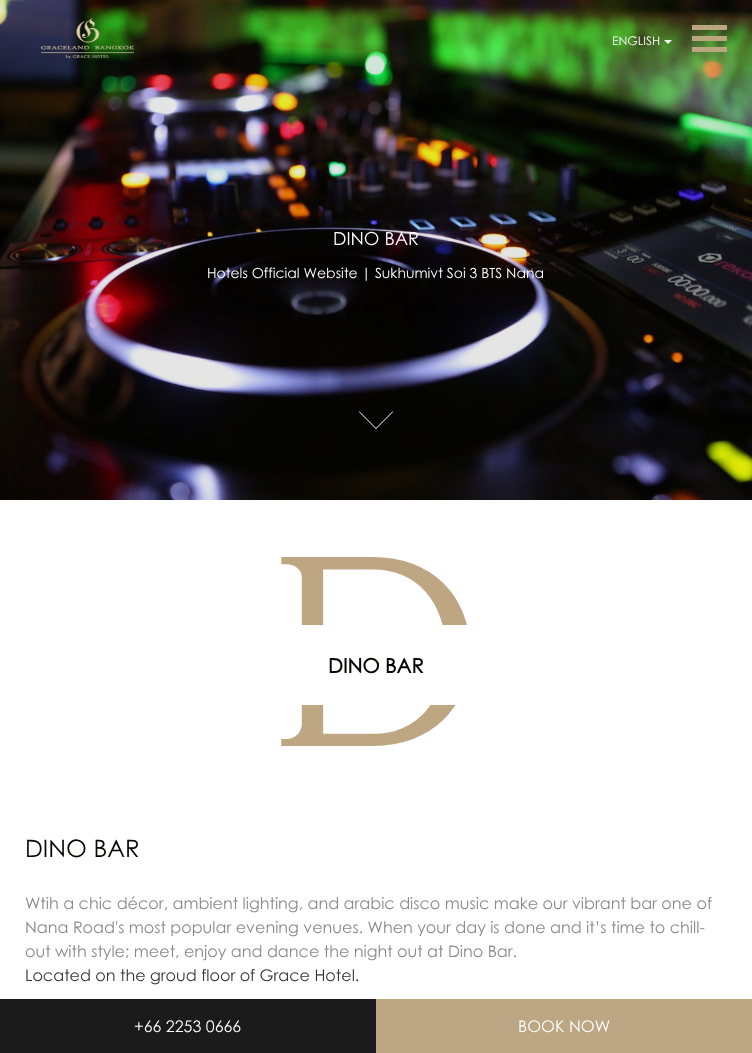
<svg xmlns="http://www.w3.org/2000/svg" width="752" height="1053">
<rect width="100%" height="100%" fill="#fff"/>
<image x="0" y="0" width="752" height="500" href="media/2.png"/>
<image x="41" y="18" width="93" height="41" href="media/1.png"/>
<text x="612" y="45" style="font-family:Century Gothic;font-size:12px;fill:#fff">ENGLISH</text>
<path d="M664 40h8l-4 4z" fill="#fff"/>
<rect x="692" y="25" width="35" height="5" fill="#bba77f"/>
<rect x="692" y="36" width="35" height="5" fill="#bba77f"/>
<rect x="692" y="47" width="35" height="5" fill="#bba77f"/>
<text x="333" y="245" style="font-family:Century Gothic;font-size:18px;fill:#fff">DINO BAR</text>
<text x="207" y="278" style="font-family:Century Gothic;font-size:14px;fill:#fff">Hotels Official Website | Sukhumivt Soi 3 BTS Nana</text>
<path d="M375.5 428.5l17-17l.5 .5l-17 17z" fill="#fff"/>
<path d="M359 412l.5-.5l17 17l-.5 .5z" fill="#fff"/>
<text x="267" y="746" style="font-family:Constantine;font-size:270px;fill:#bea682">D</text>
<rect x="301" y="625" width="170" height="80" fill="#fff"/>
<text x="328" y="673" style="font-family:Century Gothic;font-size:20px;font-weight:bold;fill:#090400">DINO BAR</text>
<text x="25" y="857" style="font-family:Century Gothic;font-size:24px;fill:#090400">DINO BAR</text>
<text x="25" y="909" style="font-family:Century Gothic;font-size:16px;fill:#888">Wtih a chic décor, ambient lighting, and arabic disco music make our vibrant bar one of</text>
<text x="25" y="933" style="font-family:Century Gothic;font-size:16px;fill:#888">Nana Road's most popular evening venues. When your day is done and it’s time to chill-</text>
<text x="25" y="957" style="font-family:Century Gothic;font-size:16px;fill:#888">out with style; meet, enjoy and dance the night out at Dino Bar.</text>
<text x="25" y="981" style="font-family:Century Gothic;font-size:16px;fill:#333">Located on the groud floor of Grace Hotel.</text>
<rect y="999" width="376" height="54" fill="#1b1b1b"/>
<text x="134" y="1032" style="font-family:Century Gothic;font-size:16px;fill:#fff">+66 2253 0666</text>
<rect x="376" y="999" width="376" height="54" fill="#bda684"/>
<text x="518" y="1032" style="font-family:Century Gothic;font-size:16px;fill:#fff">BOOK NOW</text>
</svg>
